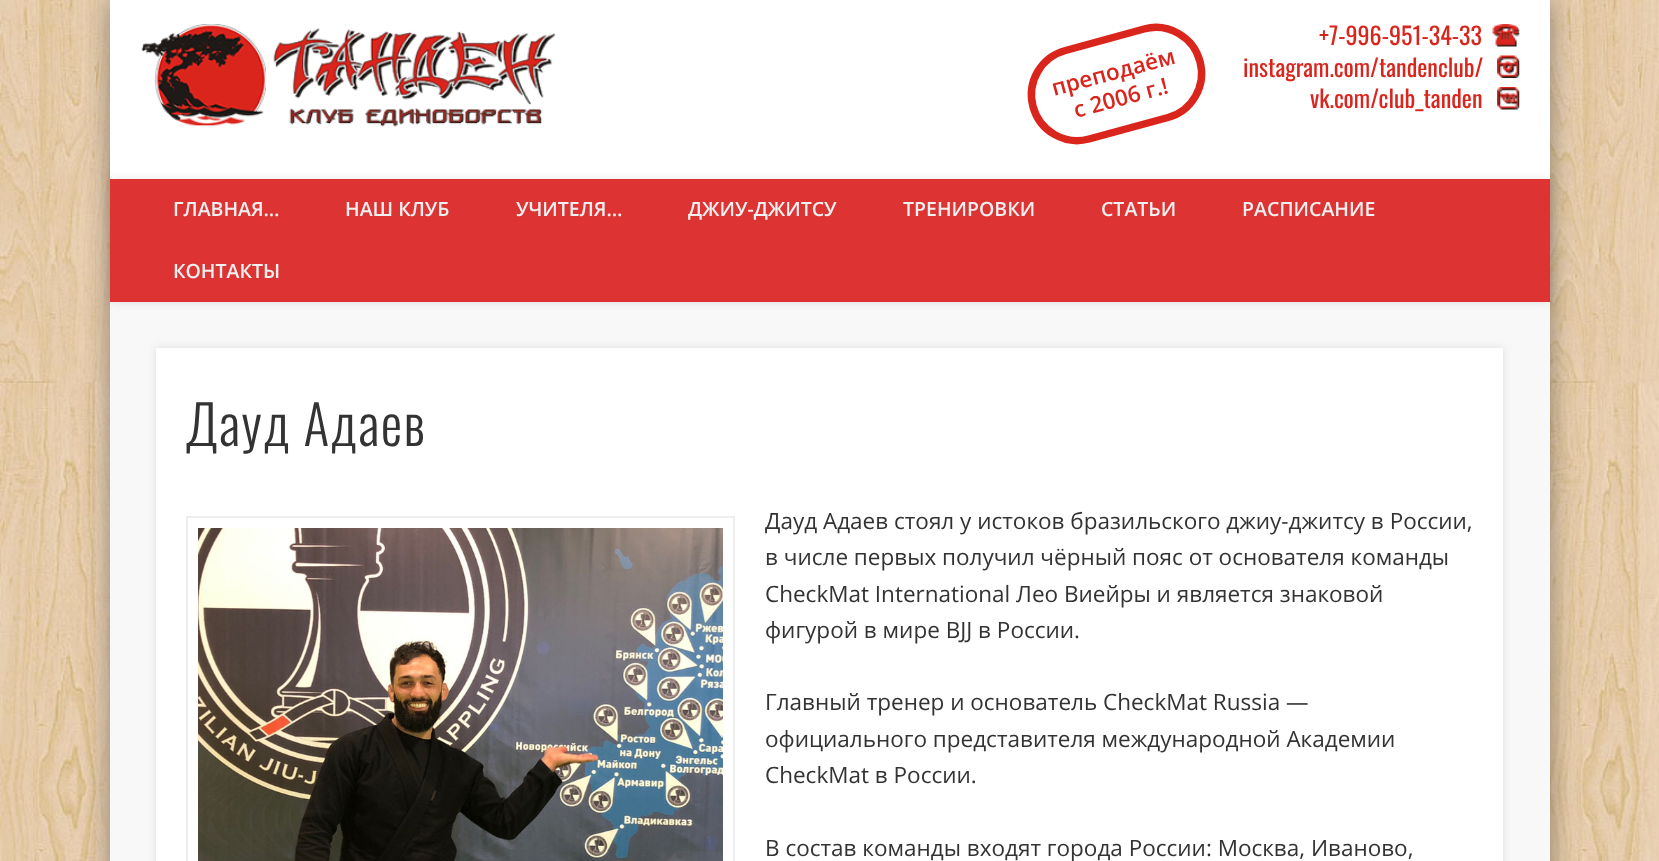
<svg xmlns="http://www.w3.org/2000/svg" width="1659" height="861">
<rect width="100%" height="100%" fill="#fff"/>
<image x="0" y="0" width="1659" height="861" href="media/1.png"/>
<rect x="110" width="1440" height="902" fill="#00000066" filter="blur(13.5px)"/>
<rect x="110" y="302" width="1440" height="559" fill="#f8f8f8"/>
<rect x="110" width="1440" height="179" fill="#fff"/>
<image x="141" y="24" width="415" height="103" href="media/2.png"/>
<path d="M1065.5 50.5l78.5-21.5c24.5-6.5 49.5 8 56 32.5c6.5 24.5-8 49.5-32 56l-79 21.5c-24.5 6.5-49.5-8-56-32.5c-6.5-24.5 8-49.5 32.5-56z" fill="none" stroke="#da251d" stroke-width="7.5"/>
<text x="1054" y="96" transform="rotate(-15 1054 96)" style="font-family:Open Sans;font-size:22.5px;font-weight:600;fill:#da251d">преподаём</text>
<text x="1076" y="118" transform="rotate(-15 1076 118)" style="font-family:Open Sans;font-size:22.5px;font-weight:600;fill:#da251d">с 2006 г.!</text>
<image x="1492" y="24" width="28" height="23" href="media/3.png"/>
<text x="1319" y="45" style="font-family:Oswald;font-size:24px;fill:#da251d">+7-996-951-34-33</text>
<image x="1497" y="55" width="23" height="23" href="media/4.png"/>
<text x="1243" y="77" style="font-family:Oswald;font-size:24px;fill:#da251d">instagram.com/tandenclub/</text>
<image x="1497" y="87" width="23" height="23" href="media/5.png"/>
<text x="1310" y="108" style="font-family:Oswald;font-size:24px;fill:#da251d">vk.com/club_tanden</text>
<rect x="110" y="179" width="1440" height="123" fill="#0000001a" filter="blur(5px)"/>
<rect x="110" y="179" width="1440" height="123" fill="#d33"/>
<text x="173" y="216" style="font-family:Open Sans;font-size:19.5px;font-weight:600;fill:#f0f0f0">ГЛАВНАЯ…</text>
<text x="345" y="216" style="font-family:Open Sans;font-size:19.5px;font-weight:600;fill:#f0f0f0">НАШ КЛУБ</text>
<text x="516" y="216" style="font-family:Open Sans;font-size:19.5px;font-weight:600;fill:#f0f0f0">УЧИТЕЛЯ…</text>
<text x="688" y="216" style="font-family:Open Sans;font-size:19.5px;font-weight:600;fill:#f0f0f0">ДЖИУ-ДЖИТСУ</text>
<text x="903" y="216" style="font-family:Open Sans;font-size:19.5px;font-weight:600;fill:#f0f0f0">ТРЕНИРОВКИ</text>
<text x="1101" y="216" style="font-family:Open Sans;font-size:19.5px;font-weight:600;fill:#f0f0f0">СТАТЬИ</text>
<text x="1242" y="216" style="font-family:Open Sans;font-size:19.5px;font-weight:600;fill:#f0f0f0">РАСПИСАНИЕ</text>
<text x="173" y="278" style="font-family:Open Sans;font-size:19.5px;font-weight:600;fill:#f0f0f0">КОНТАКТЫ</text>
<rect x="156" y="348" width="1347" height="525" fill="#0000001a" filter="blur(4px)"/>
<rect x="156" y="348" width="1347" height="513" fill="#fff"/>
<text x="186" y="446" style="font-family:Oswald;font-size:54px;font-weight:300;letter-spacing:1.5px;fill:#333">Дауд Адаев</text>
<rect x="187" y="517" width="547" height="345" fill="none" stroke="#eee" stroke-width="2"/>
<image x="198" y="528" width="525" height="333" href="media/6.png"/>
<text x="765" y="529" style="font-family:Open Sans;font-size:22.5px;fill:#333">Дауд Адаев стоял у истоков бразильского джиу-джитсу в России,</text>
<text x="765" y="565" style="font-family:Open Sans;font-size:22.5px;fill:#333">в числе первых получил чёрный пояс от основателя команды</text>
<text x="765" y="602" style="font-family:Open Sans;font-size:22.5px;fill:#333">CheckMat International Лео Виейры и является знаковой</text>
<text x="765" y="638" style="font-family:Open Sans;font-size:22.5px;fill:#333">фигурой в мире BJJ в России.</text>
<text x="765" y="710" style="font-family:Open Sans;font-size:22.5px;fill:#333">Главный тренер и основатель CheckMat Russia —</text>
<text x="765" y="747" style="font-family:Open Sans;font-size:22.5px;fill:#333">официального представителя международной Академии</text>
<text x="765" y="783" style="font-family:Open Sans;font-size:22.5px;fill:#333">CheckMat в России.</text>
<text x="765" y="856" style="font-family:Open Sans;font-size:22.5px;fill:#333">В состав команды входят города России: Москва, Иваново,</text>
</svg>
